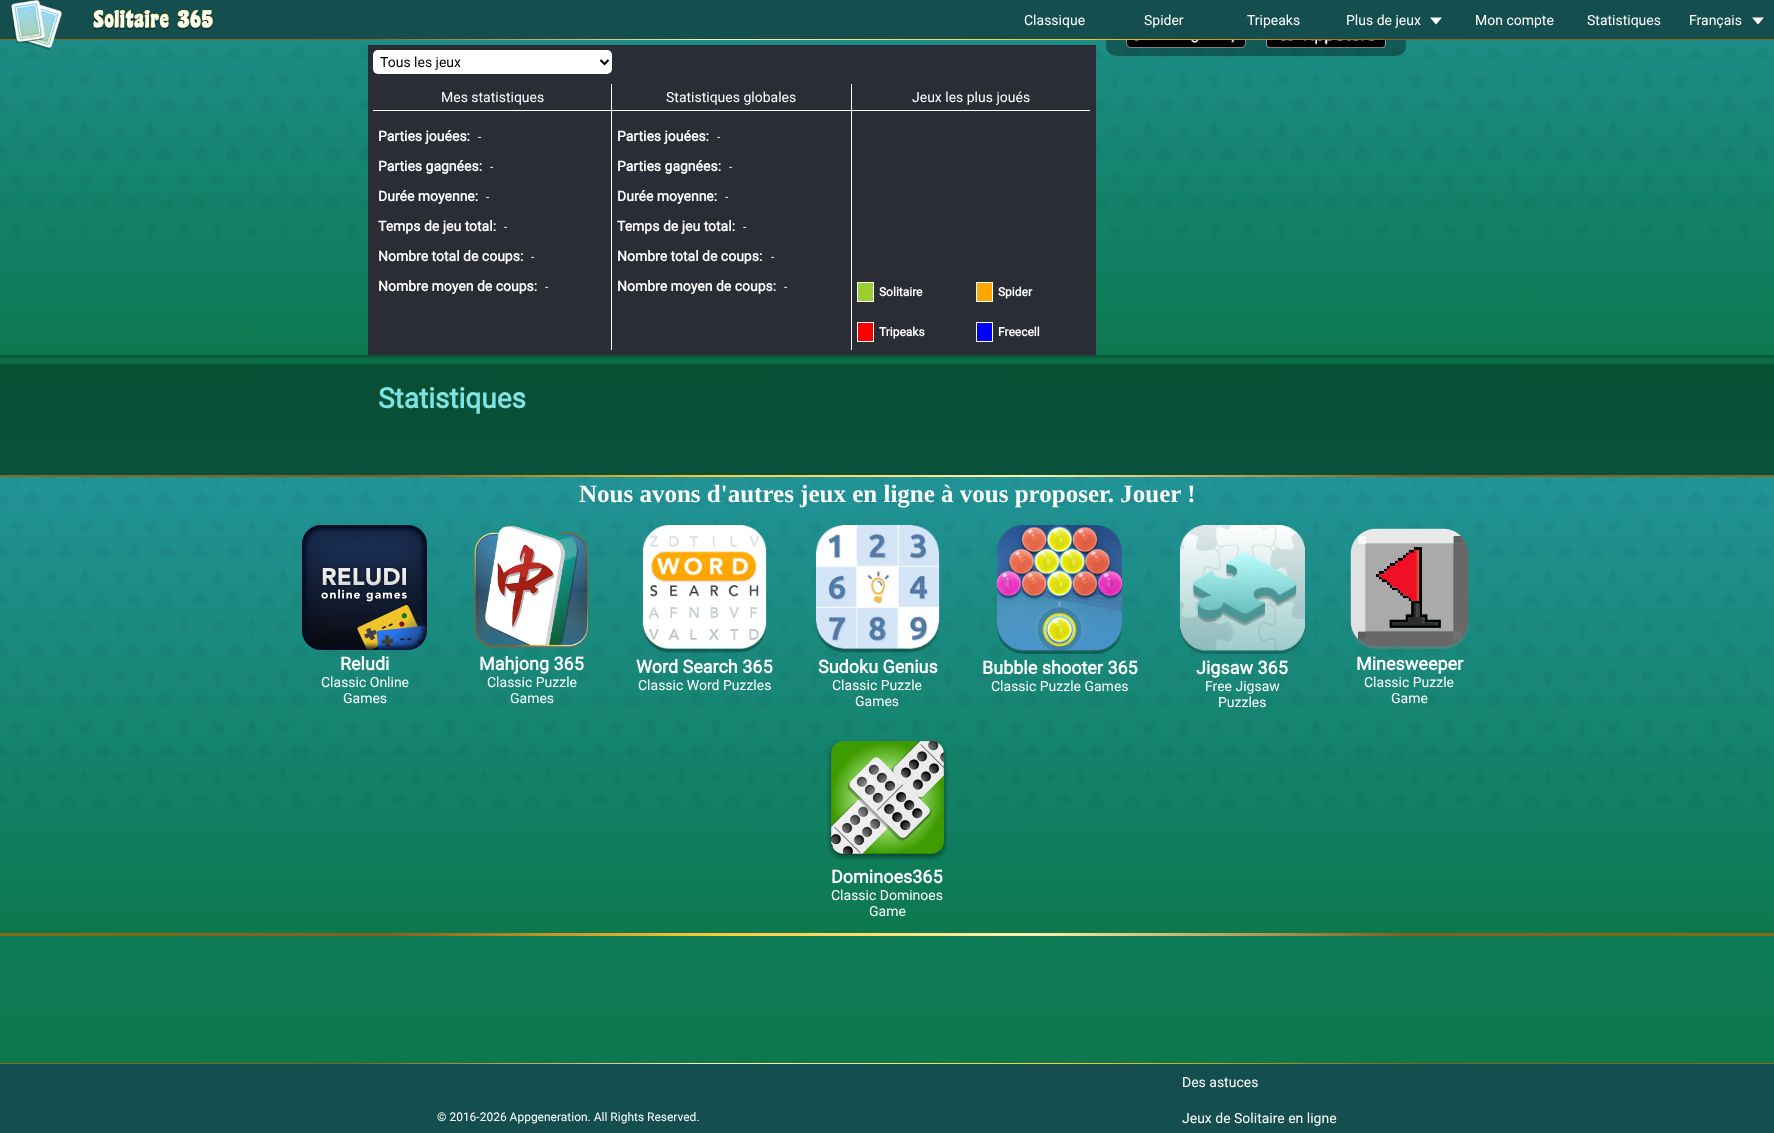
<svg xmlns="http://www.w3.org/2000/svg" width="1774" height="1133">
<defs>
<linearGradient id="g1" gradientUnits="userSpaceOnUse" x1="887" y1="-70" x2="887" y2="365"><stop offset="0" stop-color="#229398"/><stop offset="1" stop-color="#0b784e"/></linearGradient>
<linearGradient id="g2" gradientUnits="userSpaceOnUse" x1="0" y1="40" x2="1774" y2="39"><stop offset="0" stop-color="#886a14"/><stop offset="0.2" stop-color="#865f1a"/><stop offset="0.4" stop-color="#fff2ae"/><stop offset="0.6" stop-color="#ffc934"/><stop offset="0.8" stop-color="#865f1b"/><stop offset="1" stop-color="#886a14"/></linearGradient>
<linearGradient id="g3" gradientUnits="userSpaceOnUse" x1="887" y1="-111" x2="887" y2="1063"><stop offset="0" stop-color="#229398"/><stop offset="1" stop-color="#0b784e"/></linearGradient>
<linearGradient id="g4" gradientUnits="userSpaceOnUse" x1="887" y1="936" x2="887" y2="365"><stop offset="0" stop-color="#166063"/><stop offset="1" stop-color="#074e33"/></linearGradient>
<linearGradient id="g5" gradientUnits="userSpaceOnUse" x1="887" y1="475" x2="887" y2="936"><stop offset="0" stop-color="#229398"/><stop offset="1" stop-color="#0b784e"/></linearGradient>
<linearGradient id="g6" gradientUnits="userSpaceOnUse" x1="1441" y1="46" x2="333" y2="906"><stop offset="0" stop-color="#886a14"/><stop offset="0.21" stop-color="#865f1b"/><stop offset="0.42" stop-color="#fff2ae"/><stop offset="0.6" stop-color="#ffc934"/><stop offset="0.78" stop-color="#865f1b"/><stop offset="1" stop-color="#886a14"/></linearGradient>
<linearGradient id="g7" gradientUnits="userSpaceOnUse" x1="1441" y1="504" x2="333" y2="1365"><stop offset="0" stop-color="#886a14"/><stop offset="0.21" stop-color="#865f1b"/><stop offset="0.42" stop-color="#fff2ae"/><stop offset="0.6" stop-color="#ffc934"/><stop offset="0.78" stop-color="#865f1b"/><stop offset="1" stop-color="#886a14"/></linearGradient>
<linearGradient id="g8" gradientUnits="userSpaceOnUse" x1="0" y1="1064" x2="1774" y2="1064"><stop offset="0" stop-color="#886a14"/><stop offset="0.2" stop-color="#865f1a"/><stop offset="0.4" stop-color="#fff2ae"/><stop offset="0.6" stop-color="#ffc934"/><stop offset="0.8" stop-color="#865f1b"/><stop offset="1" stop-color="#886a14"/></linearGradient>
</defs>
<rect width="100%" height="100%" fill="#fff"/>
<rect y="40" width="1774" height="325" fill="url(#g1)"/>
<image x="0" y="46" width="1771" height="192" href="media/3.png"/>
<rect x="1106" y="-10" width="300" height="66" rx="10" fill="#00000059"/>
<rect width="1774" height="39" fill="#144e4e"/>
<rect y="39" width="1774" height="1" fill="url(#g2)"/>
<image x="10" y="0" width="52" height="50" href="media/1.png"/>
<image x="93" y="10" width="120" height="20" href="media/2.png"/>
<text x="1024" y="25" style="font-family:Roboto;font-size:14px;fill:#fff">Classique</text>
<text x="1144" y="25" style="font-family:Roboto;font-size:14px;fill:#fff">Spider</text>
<text x="1247" y="25" style="font-family:Roboto;font-size:14px;fill:#fff">Tripeaks</text>
<text x="1346" y="25" style="font-family:Roboto;font-size:14px;fill:#fff">Plus de jeux</text>
<path d="M1436 24.5l-6-7h12z" fill="#fff" fill-rule="evenodd"/>
<text x="1475" y="25" style="font-family:Roboto;font-size:14px;fill:#fff">Mon compte</text>
<text x="1587" y="25" style="font-family:Roboto;font-size:14px;fill:#fff">Statistiques</text>
<text x="1689" y="25" style="font-family:Roboto;font-size:14px;fill:#fff">Français</text>
<path d="M1758 24.5l-6-7h12z" fill="#fff" fill-rule="evenodd"/>
<rect y="936" width="1774" height="127" fill="url(#g3)"/>
<image x="1126" y="40" width="120" height="8" href="media/4.png"/>
<image x="1266" y="40" width="120" height="8" href="media/5.png"/>
<rect x="368" y="45" width="728" height="310" fill="#2b2d36"/>
<rect x="373" y="50" width="239" height="24" rx="5" fill="#fff"/>
<path d="M600.5 60l4 4l4-4" fill="none" stroke="#000" stroke-width="2"/>
<text x="380" y="67" style="font-family:Roboto;font-size:14px;fill:#000">Tous les jeux</text>
<rect x="611" y="84" width="1" height="266" fill="#fff"/>
<rect x="373" y="110" width="238" height="1" fill="#fff"/>
<text x="441" y="102" style="font-family:Roboto;font-size:14px;fill:#fff">Mes statistiques</text>
<text x="378" y="141" style="font-family:Roboto;font-size:14px;font-weight:bold;fill:#fff">Parties jouées:</text>
<text x="478" y="141" style="font-family:Roboto;font-size:12px;fill:#fff">-</text>
<text x="378" y="171" style="font-family:Roboto;font-size:14px;font-weight:bold;fill:#fff">Parties gagnées:</text>
<text x="490" y="171" style="font-family:Roboto;font-size:12px;fill:#fff">-</text>
<text x="378" y="201" style="font-family:Roboto;font-size:14px;font-weight:bold;fill:#fff">Durée moyenne:</text>
<text x="486" y="201" style="font-family:Roboto;font-size:12px;fill:#fff">-</text>
<text x="378" y="231" style="font-family:Roboto;font-size:14px;font-weight:bold;fill:#fff">Temps de jeu total:</text>
<text x="504" y="231" style="font-family:Roboto;font-size:12px;fill:#fff">-</text>
<text x="378" y="261" style="font-family:Roboto;font-size:14px;font-weight:bold;fill:#fff">Nombre total de coups:</text>
<text x="531" y="261" style="font-family:Roboto;font-size:12px;fill:#fff">-</text>
<text x="378" y="291" style="font-family:Roboto;font-size:14px;font-weight:bold;fill:#fff">Nombre moyen de coups:</text>
<text x="545" y="291" style="font-family:Roboto;font-size:12px;fill:#fff">-</text>
<rect x="851" y="84" width="1" height="266" fill="#fff"/>
<rect x="612" y="110" width="239" height="1" fill="#fff"/>
<text x="666" y="102" style="font-family:Roboto;font-size:14px;fill:#fff">Statistiques globales</text>
<text x="617" y="141" style="font-family:Roboto;font-size:14px;font-weight:bold;fill:#fff">Parties jouées:</text>
<text x="717" y="141" style="font-family:Roboto;font-size:12px;fill:#fff">-</text>
<text x="617" y="171" style="font-family:Roboto;font-size:14px;font-weight:bold;fill:#fff">Parties gagnées:</text>
<text x="729" y="171" style="font-family:Roboto;font-size:12px;fill:#fff">-</text>
<text x="617" y="201" style="font-family:Roboto;font-size:14px;font-weight:bold;fill:#fff">Durée moyenne:</text>
<text x="725" y="201" style="font-family:Roboto;font-size:12px;fill:#fff">-</text>
<text x="617" y="231" style="font-family:Roboto;font-size:14px;font-weight:bold;fill:#fff">Temps de jeu total:</text>
<text x="743" y="231" style="font-family:Roboto;font-size:12px;fill:#fff">-</text>
<text x="617" y="261" style="font-family:Roboto;font-size:14px;font-weight:bold;fill:#fff">Nombre total de coups:</text>
<text x="771" y="261" style="font-family:Roboto;font-size:12px;fill:#fff">-</text>
<text x="617" y="291" style="font-family:Roboto;font-size:14px;font-weight:bold;fill:#fff">Nombre moyen de coups:</text>
<text x="784" y="291" style="font-family:Roboto;font-size:12px;fill:#fff">-</text>
<rect x="852" y="110" width="238" height="1" fill="#fff"/>
<text x="912" y="102" style="font-family:Roboto;font-size:14px;fill:#fff">Jeux les plus joués</text>
<rect x="857.5" y="282.5" width="16" height="19" fill="#9acd32" stroke="#fff"/>
<text x="879" y="296" style="font-family:Roboto;font-size:12px;font-weight:bold;fill:#fff">Solitaire</text>
<rect x="976.5" y="282.5" width="16" height="19" fill="#ffa500" stroke="#fff"/>
<text x="998" y="296" style="font-family:Roboto;font-size:12px;font-weight:bold;fill:#fff">Spider</text>
<rect x="857.5" y="322.5" width="16" height="19" fill="#f00" stroke="#fff"/>
<text x="879" y="336" style="font-family:Roboto;font-size:12px;font-weight:bold;fill:#fff">Tripeaks</text>
<rect x="976.5" y="322.5" width="16" height="19" fill="#00f" stroke="#fff"/>
<text x="998" y="336" style="font-family:Roboto;font-size:12px;font-weight:bold;fill:#fff">Freecell</text>
<image x="0" y="355" width="1774" height="10" href="media/6.png"/>
<rect y="365" width="1774" height="110" fill="url(#g4)"/>
<text x="378" y="408" style="font-family:Roboto;font-size:28px;font-weight:bold;fill:#7de4e3">Statistiques</text>
<rect y="477" width="1774" height="456" fill="url(#g5)"/>
<rect y="475" width="1774" height="2" fill="url(#g6)"/>
<image x="0" y="477" width="1771" height="331" href="media/7.png"/>
<text x="579" y="502" style="font-family:Liberation Serif;font-size:25px;font-weight:bold;fill:#fff">Nous avons d'autres jeux en ligne à vous proposer. Jouer !</text>
<image x="302" y="525" width="125" height="125" href="media/8.png"/>
<text x="340" y="670" style="font-family:Roboto;font-size:18px;font-weight:bold;fill:#fff">Reludi</text>
<text x="321" y="687" style="font-family:Roboto;font-size:14px;fill:#fff">Classic Online</text>
<text x="343" y="703" style="font-family:Roboto;font-size:14px;fill:#fff">Games</text>
<image x="474" y="526" width="115" height="123" href="media/9.png"/>
<text x="479" y="670" style="font-family:Roboto;font-size:18px;font-weight:bold;fill:#fff">Mahjong 365</text>
<text x="487" y="687" style="font-family:Roboto;font-size:14px;fill:#fff">Classic Puzzle</text>
<text x="510" y="703" style="font-family:Roboto;font-size:14px;fill:#fff">Games</text>
<image x="642" y="525" width="125" height="128" href="media/10.png"/>
<text x="636" y="673" style="font-family:Roboto;font-size:18px;font-weight:bold;fill:#fff">Word Search 365</text>
<text x="638" y="690" style="font-family:Roboto;font-size:14px;fill:#fff">Classic Word Puzzles</text>
<image x="815" y="525" width="125" height="128" href="media/11.png"/>
<text x="818" y="673" style="font-family:Roboto;font-size:18px;font-weight:bold;fill:#fff">Sudoku Genius</text>
<text x="832" y="690" style="font-family:Roboto;font-size:14px;fill:#fff">Classic Puzzle</text>
<text x="855" y="706" style="font-family:Roboto;font-size:14px;fill:#fff">Games</text>
<image x="997" y="525" width="125" height="129" href="media/12.png"/>
<text x="982" y="674" style="font-family:Roboto;font-size:18px;font-weight:bold;fill:#fff">Bubble shooter 365</text>
<text x="991" y="691" style="font-family:Roboto;font-size:14px;fill:#fff">Classic Puzzle Games</text>
<image x="1180" y="525" width="125" height="129" href="media/13.png"/>
<text x="1196" y="674" style="font-family:Roboto;font-size:18px;font-weight:bold;fill:#fff">Jigsaw 365</text>
<text x="1205" y="691" style="font-family:Roboto;font-size:14px;fill:#fff">Free Jigsaw</text>
<text x="1218" y="707" style="font-family:Roboto;font-size:14px;fill:#fff">Puzzles</text>
<image x="1350" y="528" width="119" height="121" href="media/14.png"/>
<text x="1356" y="670" style="font-family:Roboto;font-size:18px;font-weight:bold;fill:#fff">Minesweeper</text>
<text x="1364" y="687" style="font-family:Roboto;font-size:14px;fill:#fff">Classic Puzzle</text>
<text x="1391" y="703" style="font-family:Roboto;font-size:14px;fill:#fff">Game</text>
<image x="827" y="740" width="121" height="121" href="media/15.png"/>
<text x="831" y="883" style="font-family:Roboto;font-size:18px;font-weight:bold;fill:#fff">Dominoes365</text>
<text x="831" y="900" style="font-family:Roboto;font-size:14px;fill:#fff">Classic Dominoes</text>
<text x="869" y="916" style="font-family:Roboto;font-size:14px;fill:#fff">Game</text>
<rect y="933" width="1774" height="3" fill="url(#g7)"/>
<rect y="1063" width="1774" height="1" fill="url(#g8)"/>
<rect y="1064" width="1774" height="69" fill="#144e4e"/>
<text x="437" y="1121" style="font-family:Roboto;font-size:12px;fill:#fff">© 2016-2026 Appgeneration. All Rights Reserved.</text>
<text x="1182" y="1087" style="font-family:Roboto;font-size:14px;fill:#fff">Des astuces</text>
<text x="1182" y="1123" style="font-family:Roboto;font-size:14px;fill:#fff">Jeux de Solitaire en ligne</text>
</svg>
